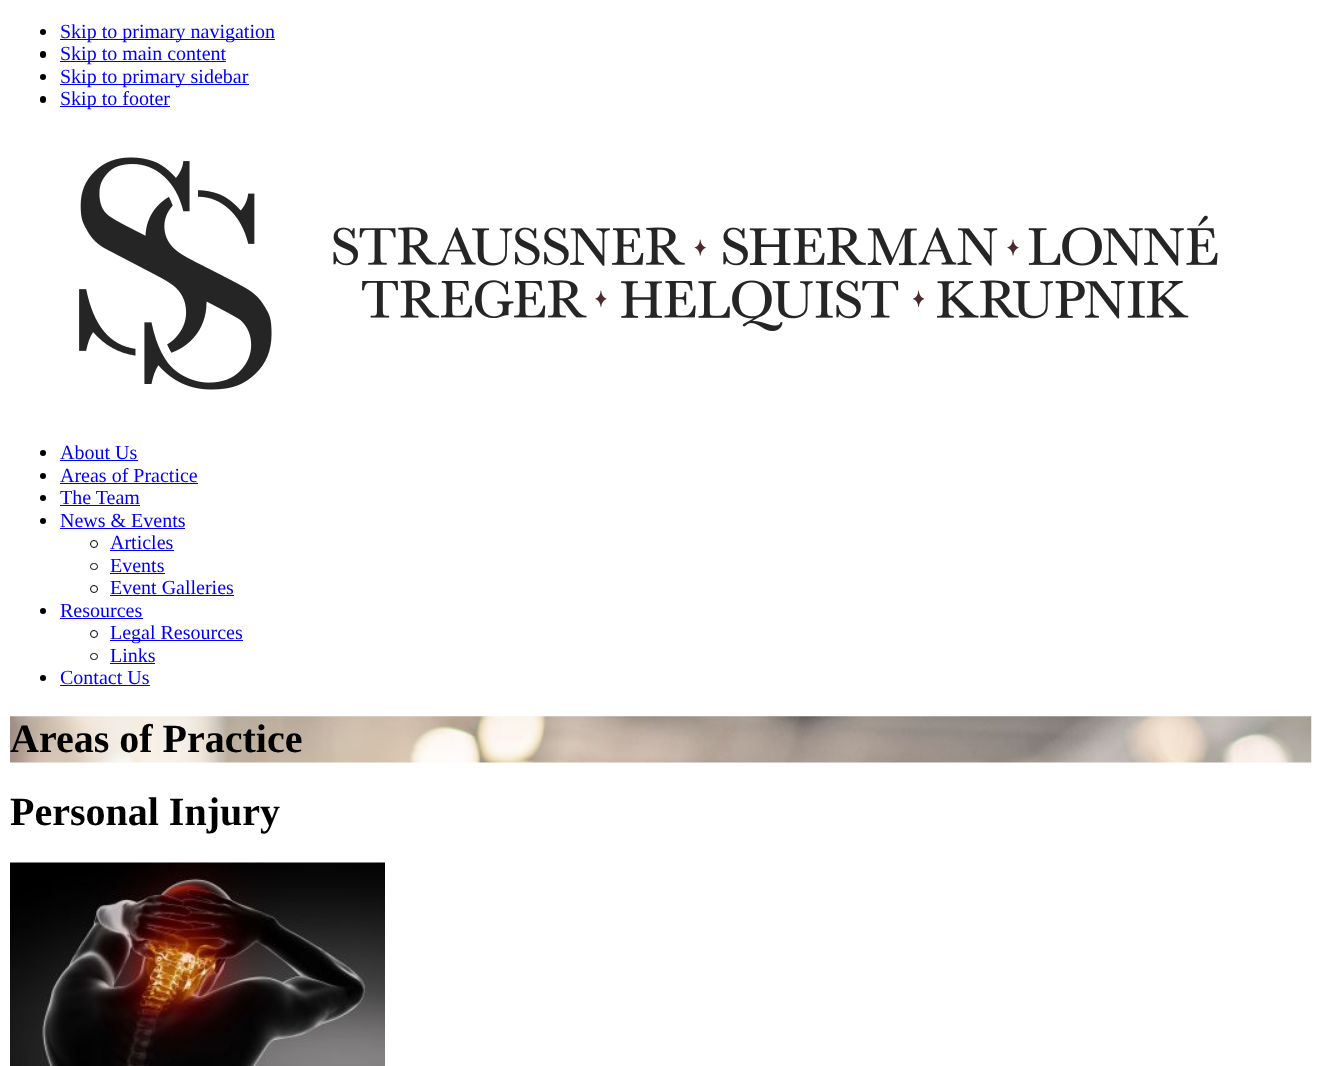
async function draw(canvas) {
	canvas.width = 1321;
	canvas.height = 1066;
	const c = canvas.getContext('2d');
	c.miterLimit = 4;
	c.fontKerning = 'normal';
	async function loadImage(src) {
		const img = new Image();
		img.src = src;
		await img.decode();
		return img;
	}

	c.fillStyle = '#fff';
	c.fillRect(0, 0, 1321, 1066);
	c.fillStyle = '#000';
	c.beginPath();
	c.arc(43, 32, 3, 0, 2 * Math.PI);
	c.fill();
	c.fillStyle = '#00e';
	c.fillRect(60, 39, 215, 1);
	c.font = '20px Liberation Serif';
	c.fillText('Skip to primary navigation', 60, 38);
	c.fillStyle = '#000';
	c.beginPath();
	c.roundRect(40, 51, 6, 7, 3);
	c.fill();
	c.fillStyle = '#00e';
	c.fillRect(60, 61, 166, 1);
	c.fillText('Skip to main content', 60, 60);
	c.fillStyle = '#000';
	c.beginPath();
	c.arc(43, 77, 3, 0, 2 * Math.PI);
	c.fill();
	c.fillStyle = '#00e';
	c.fillRect(60, 84, 189, 1);
	c.fillText('Skip to primary sidebar', 60, 83);
	c.fillStyle = '#000';
	c.beginPath();
	c.roundRect(40, 96, 6, 7, 3);
	c.fill();
	c.fillStyle = '#00e';
	c.fillRect(60, 106, 110, 1);
	c.fillText('Skip to footer', 60, 105);
	c.drawImage(await loadImage('img1.png'), 79, 157, 1139, 233);
	c.fillStyle = '#000';
	c.beginPath();
	c.arc(43, 453, 3, 0, 2 * Math.PI);
	c.fill();
	c.fillStyle = '#00e';
	c.fillText('About Us', 60, 459);
	c.fillRect(60, 460, 78, 1);
	c.fillStyle = '#000';
	c.beginPath();
	c.arc(43, 476, 3, 0, 2 * Math.PI);
	c.fill();
	c.fillStyle = '#00e';
	c.fillText('Areas of Practice', 60, 482);
	c.fillRect(60, 483, 138, 1);
	c.fillStyle = '#000';
	c.beginPath();
	c.arc(43, 498, 3, 0, 2 * Math.PI);
	c.fill();
	c.fillStyle = '#00e';
	c.fillText('The Team', 60, 504);
	c.fillRect(60, 505, 80, 1);
	c.fillStyle = '#000';
	c.beginPath();
	c.arc(43, 521, 3, 0, 2 * Math.PI);
	c.fill();
	c.fillStyle = '#00e';
	c.fillText('News & Events', 60, 527);
	c.fillRect(60, 528, 125, 1);
	c.beginPath();
	c.arc(94, 544, 3.5, 0, 2 * Math.PI);
	c.strokeStyle = '#000';
	c.stroke();
	c.fillText('Articles', 110, 549);
	c.fillRect(110, 550, 64, 1);
	c.beginPath();
	c.roundRect(90.5, 563.5, 7, 6, 3);
	c.stroke();
	c.fillText('Events', 110, 572);
	c.fillRect(110, 573, 55, 1);
	c.beginPath();
	c.arc(94, 589, 3.5, 0, 2 * Math.PI);
	c.stroke();
	c.fillText('Event Galleries', 110, 594);
	c.fillRect(110, 595, 124, 1);
	c.fillStyle = '#000';
	c.beginPath();
	c.arc(43, 611, 3, 0, 2 * Math.PI);
	c.fill();
	c.fillStyle = '#00e';
	c.fillText('Resources', 60, 617);
	c.fillRect(60, 618, 83, 1);
	c.beginPath();
	c.arc(94, 634, 3.5, 0, 2 * Math.PI);
	c.stroke();
	c.fillRect(110, 640, 133, 1);
	c.fillText('Legal Resources', 110, 639);
	c.beginPath();
	c.roundRect(90.5, 653.5, 7, 6, 3);
	c.stroke();
	c.fillText('Links', 110, 662);
	c.fillRect(110, 663, 45, 1);
	c.fillStyle = '#000';
	c.beginPath();
	c.arc(43, 678, 3, 0, 2 * Math.PI);
	c.fill();
	c.fillStyle = '#00e';
	c.fillText('Contact Us', 60, 684);
	c.fillRect(60, 685, 90, 1);
	c.drawImage(await loadImage('img2.png'), 10, 716, 1302, 47);
	c.font = 'bold 40px Liberation Serif';
	c.fillStyle = '#000';
	c.fillText('Areas of Practice', 10, 752);
	c.fillText('Personal Injury', 10, 825);
	c.drawImage(await loadImage('img3.png'), 10, 862, 375, 204);
}

draw(document.querySelector('canvas'));
